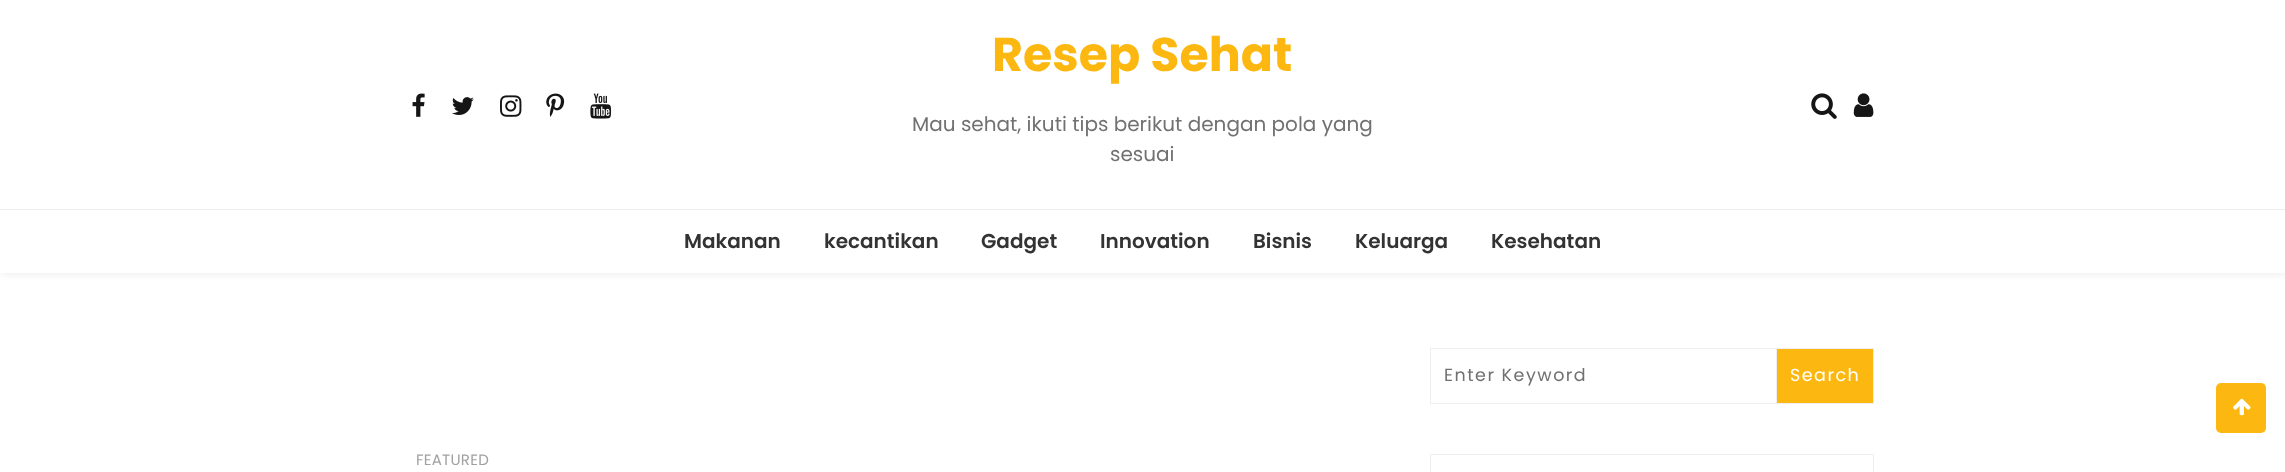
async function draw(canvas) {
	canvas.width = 2285;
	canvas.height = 472;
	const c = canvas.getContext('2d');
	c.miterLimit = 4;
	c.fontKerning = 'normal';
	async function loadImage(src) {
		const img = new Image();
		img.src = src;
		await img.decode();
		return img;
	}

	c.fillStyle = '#fff';
	c.fillRect(0, 0, 2285, 472);
	c.fillStyle = '#ebebebbf';
	c.filter = 'blur(3px)';
	c.beginPath();
	c.rect(1, 3, 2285, 272);
	c.fill();
	c.filter = 'none';
	c.fillStyle = '#fff';
	c.fillRect(0, 0, 2285, 273);
	c.drawImage(await loadImage('img1.png'), 412, 93, 13, 24);
	c.drawImage(await loadImage('img2.png'), 452, 97, 22, 18);
	c.drawImage(await loadImage('img3.png'), 500, 95, 22, 22);
	c.drawImage(await loadImage('img4.png'), 546, 93, 19, 24);
	c.drawImage(await loadImage('img5.png'), 590, 93, 22, 26);
	c.font = 'bold 47.5px Poppins';
	c.fillStyle = '#fcb811';
	c.fillText('Resep Sehat', 992, 71);
	c.font = '20px Poppins';
	c.fillStyle = '#717171';
	c.fillText('Mau sehat, ikuti tips berikut dengan pola yang', 912, 131);
	c.fillText('sesuai', 1110, 161);
	c.drawImage(await loadImage('img6.png'), 1811, 93, 26, 26);
	c.drawImage(await loadImage('img7.png'), 1853, 93, 21, 24);
	c.fillStyle = '#eee';
	c.fillRect(0, 209, 2285, 1);
	c.font = '600 20px Poppins';
	c.fillStyle = '#333';
	for (const [text, x, y] of [
		['Makanan', 684, 248],
		['kecantikan', 824, 248],
		['Gadget', 981, 248],
		['Innovation', 1100, 248],
		['Bisnis', 1253, 248],
		['Keluarga', 1355, 248],
		['Kesehatan', 1491, 248],
	]) {
		c.fillText(text, x, y);
	}
	c.strokeStyle = '#eee';
	c.strokeRect(1430.5, 348.5, 443, 55);
	c.letterSpacing = '1.5px';
	c.font = '17.5px Poppins';
	c.fillStyle = '#717171';
	c.fillText('Enter Keyword', 1444, 381);
	c.fillStyle = '#fcb811';
	c.beginPath();
	c.rect(1776.5, 348.5, 97, 55);
	c.fill();
	c.stroke();
	c.fillStyle = '#fff';
	c.fillText('Search', 1790, 381);
	c.strokeRect(1430.5, 454.5, 443, 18);
	c.letterSpacing = '0.25px';
	c.font = '15px Poppins';
	c.fillStyle = '#a1a1a1';
	c.fillText('FEATURED', 416, 465);
	c.fillStyle = '#fcb811';
	c.beginPath();
	c.roundRect(2216, 383, 50, 50, 5);
	c.fill();
	c.drawImage(await loadImage('img8.png'), 2233, 398, 18, 18);
}

draw(document.querySelector('canvas'));
